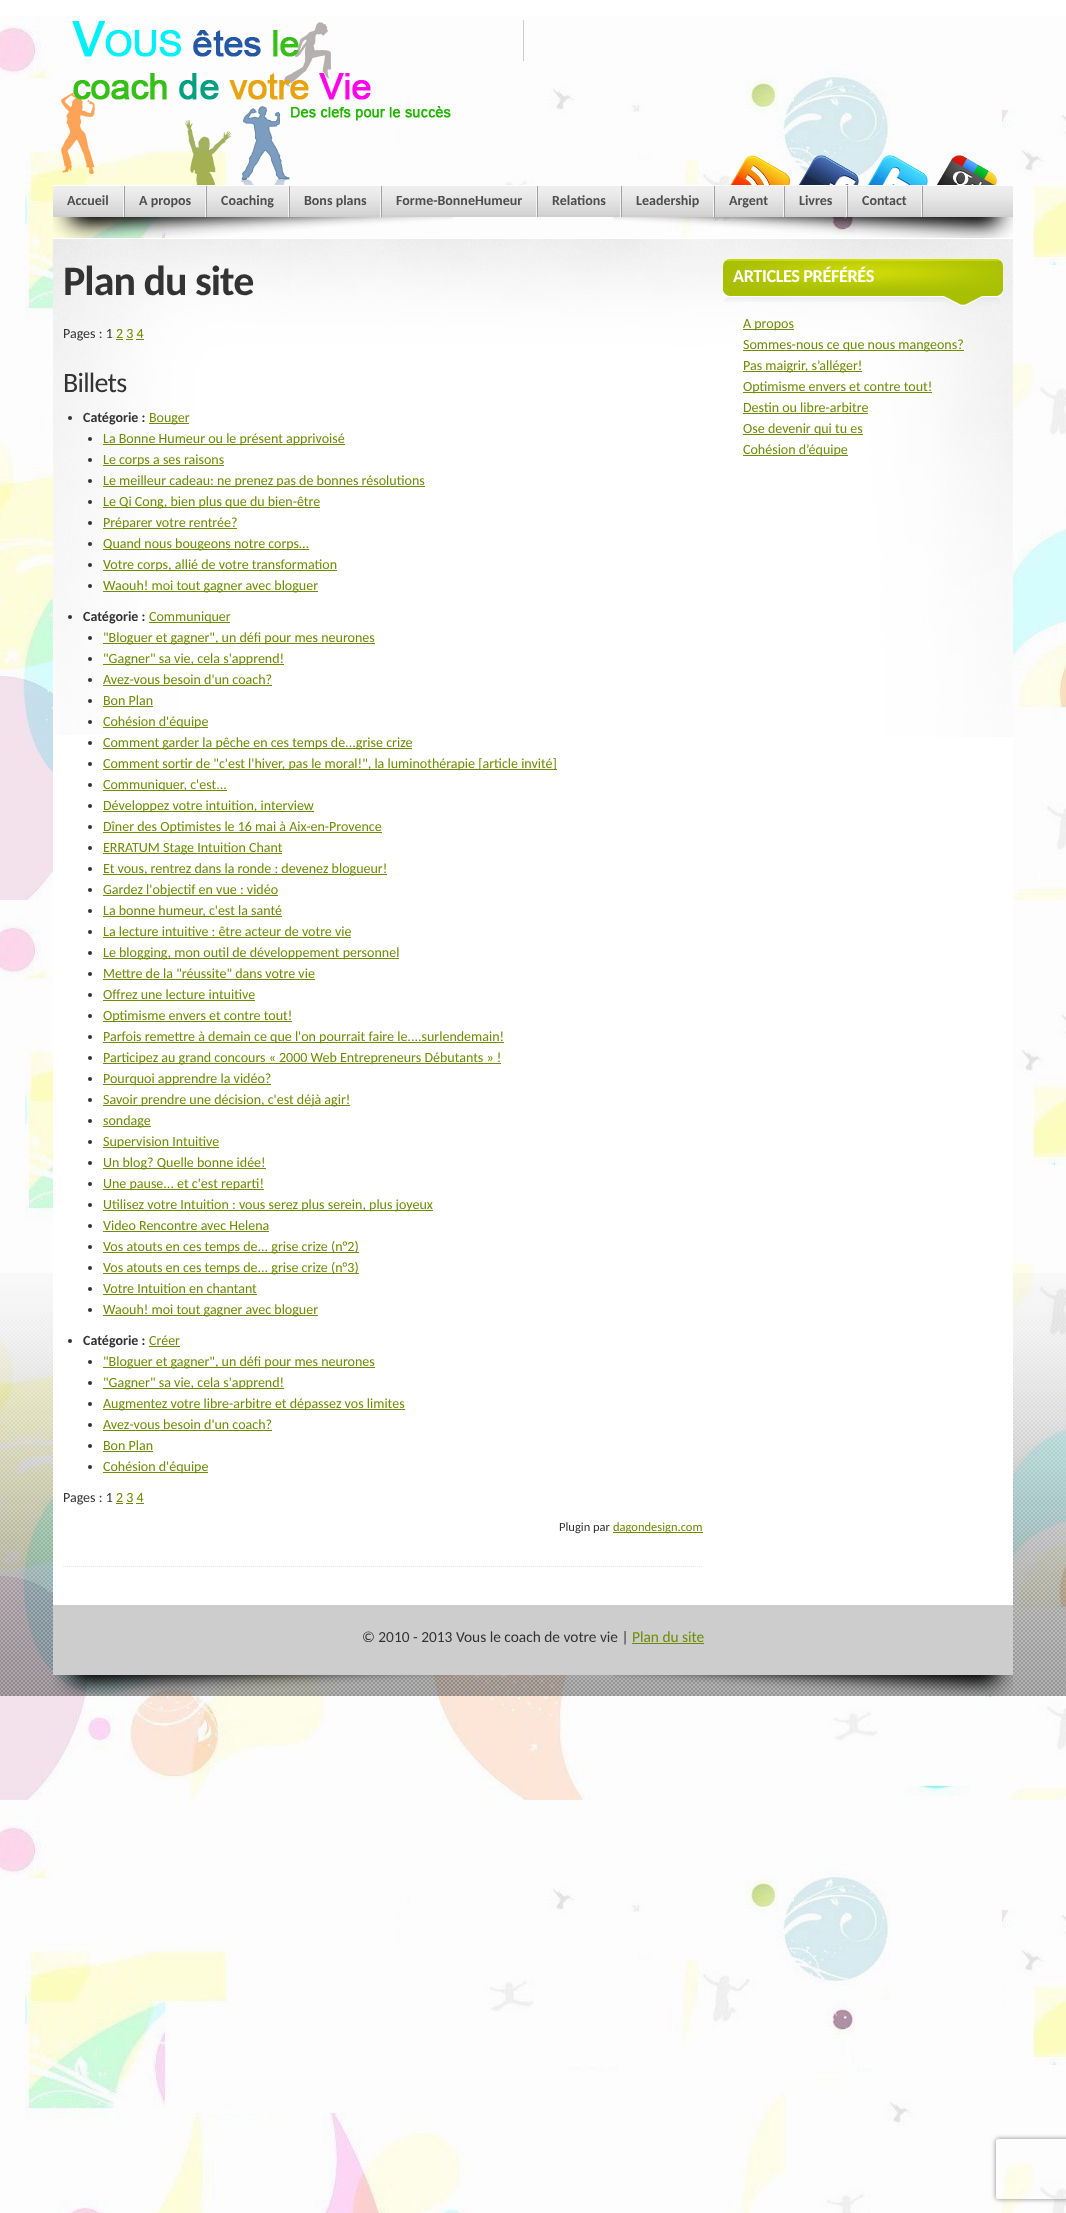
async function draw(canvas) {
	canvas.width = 1066;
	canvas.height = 2213;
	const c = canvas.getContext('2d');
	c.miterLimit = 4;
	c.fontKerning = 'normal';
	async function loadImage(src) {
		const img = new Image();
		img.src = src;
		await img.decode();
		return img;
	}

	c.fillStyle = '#fff';
	c.fillRect(0, 0, 1066, 2213);
	c.drawImage(await loadImage('img1.png'), 0, 16, 1066, 2197);
	c.drawImage(await loadImage('img2.png'), 0, 1273, 1066, 423);
	c.drawImage(await loadImage('img3.png'), 61, 21, 390, 164);
	c.fillStyle = '#ccc';
	c.fillRect(523, 20, 1, 41);
	c.drawImage(await loadImage('img4.png'), 53, 217, 400, 21);
	c.drawImage(await loadImage('img5.png'), 730, 155, 61, 30);
	c.drawImage(await loadImage('img6.png'), 799, 155, 60, 30);
	c.drawImage(await loadImage('img7.png'), 868, 155, 60, 30);
	c.drawImage(await loadImage('img8.png'), 937, 155, 60, 30);
	c.drawImage(await loadImage('img9.png'), 613, 217, 400, 21);
	c.fillStyle = '#cecece';
	c.fillRect(53, 215, 960, 2);
	c.drawImage(await loadImage('img10.png'), 53, 186, 960, 29);
	c.fillStyle = '#fff';
	c.fillRect(1002, 185, 11, 1);
	c.drawImage(await loadImage('img11.png'), 123, 186, 2, 31);
	c.fillRect(53, 185, 180, 1);
	c.font = 'bold 14px Carlito';
	c.fillStyle = '#4e4e4e';
	c.fillText('Accueil', 67, 205);
	c.drawImage(await loadImage('img11.png'), 205, 186, 2, 31);
	c.fillText('A propos', 139, 205);
	c.drawImage(await loadImage('img11.png'), 288, 186, 2, 31);
	c.fillText('Coaching', 221, 205);
	c.drawImage(await loadImage('img11.png'), 380, 186, 2, 31);
	c.fillText('Bons plans', 304, 205);
	c.drawImage(await loadImage('img11.png'), 536, 186, 2, 31);
	c.fillStyle = '#fff';
	c.fillRect(488, 185, 50, 1);
	c.fillStyle = '#4e4e4e';
	c.fillText('Forme-BonneHumeur', 396, 205);
	c.drawImage(await loadImage('img11.png'), 620, 186, 2, 31);
	c.fillText('Relations', 552, 205);
	c.drawImage(await loadImage('img11.png'), 713, 186, 2, 31);
	c.fillStyle = '#fff';
	c.fillRect(680, 185, 77, 1);
	c.fillStyle = '#4e4e4e';
	c.fillText('Leadership', 636, 205);
	c.drawImage(await loadImage('img11.png'), 783, 186, 2, 31);
	c.fillText('Argent', 729, 205);
	c.drawImage(await loadImage('img11.png'), 846, 186, 2, 31);
	c.fillStyle = '#fff';
	c.fillRect(817, 185, 40, 1);
	c.fillStyle = '#4e4e4e';
	c.fillText('Livres', 799, 205);
	c.drawImage(await loadImage('img11.png'), 921, 186, 2, 31);
	c.fillText('Contact', 862, 205);
	c.fillStyle = '#fff';
	c.fillRect(53, 238, 960, 1367);
	c.drawImage(await loadImage('img12.png'), 53, 239, 960, 498);
	c.drawImage(await loadImage('img13.png'), 53, 239, 208, 496);
	c.beginPath();
	c.moveTo(63, 1566.5);
	c.lineTo(703, 1566.5);
	c.strokeStyle = '#e8e8e8';
	c.setLineDash([1, 1]);
	c.stroke();
	c.letterSpacing = '-1px';
	c.font = 'bold 42px Carlito';
	c.fillStyle = '#333';
	c.fillText('Plan du site', 63, 295);
	c.letterSpacing = '0px';
	c.font = '14px Carlito';
	c.fillText('Pages : 1', 63, 338);
	c.fillStyle = '#6e8c03';
	c.fillText('2 3 4', 116, 338);
	for (const [x, y, w, h, color] of [
		[116, 339, 7, 1, '#6e8c03'],
		[126, 339, 7, 1, '#6e8c03'],
		[136, 339, 8, 1, '#6e8c03'],
	]) {
		c.fillStyle = color;
		c.fillRect(x, y, w, h);
	}
	c.letterSpacing = '-0.75px';
	c.font = '28px Carlito';
	c.fillStyle = '#333';
	c.fillText('Billets', 63, 392);
	c.beginPath();
	c.arc(70, 418, 2, 0, 2 * Math.PI);
	c.fill();
	c.letterSpacing = '0px';
	c.font = 'bold 14px Carlito';
	c.fillText('Catégorie :', 83, 422);
	c.fillStyle = '#6e8c03';
	c.fillRect(149, 423, 40, 1);
	c.font = '14px Carlito';
	c.fillText('Bouger', 149, 422);
	c.fillStyle = '#333';
	c.beginPath();
	c.arc(90, 439, 2, 0, 2 * Math.PI);
	c.fill();
	c.fillStyle = '#6e8c03';
	c.fillRect(103, 444, 242, 1);
	c.fillText('La Bonne Humeur ou le présent apprivoisé', 103, 443);
	c.fillStyle = '#333';
	c.beginPath();
	c.arc(90, 460, 2, 0, 2 * Math.PI);
	c.fill();
	c.fillStyle = '#6e8c03';
	c.fillRect(103, 465, 121, 1);
	c.fillText('Le corps a ses raisons', 103, 464);
	c.fillStyle = '#333';
	c.beginPath();
	c.arc(90, 481, 2, 0, 2 * Math.PI);
	c.fill();
	c.fillStyle = '#6e8c03';
	c.fillRect(103, 486, 322, 1);
	c.fillText('Le meilleur cadeau: ne prenez pas de bonnes résolutions', 103, 485);
	c.fillStyle = '#333';
	c.beginPath();
	c.arc(90, 502, 2, 0, 2 * Math.PI);
	c.fill();
	c.fillStyle = '#6e8c03';
	c.fillRect(103, 507, 217, 1);
	c.fillText('Le Qi Cong, bien plus que du bien-être', 103, 506);
	c.fillStyle = '#333';
	c.beginPath();
	c.arc(90, 523, 2, 0, 2 * Math.PI);
	c.fill();
	c.fillStyle = '#6e8c03';
	c.fillRect(103, 528, 134, 1);
	c.fillText('Préparer votre rentrée?', 103, 527);
	c.fillStyle = '#333';
	c.beginPath();
	c.arc(90, 544, 2, 0, 2 * Math.PI);
	c.fill();
	c.fillStyle = '#6e8c03';
	c.fillRect(103, 549, 206, 1);
	c.fillText('Quand nous bougeons notre corps…', 103, 548);
	c.fillStyle = '#333';
	c.beginPath();
	c.arc(90, 565, 2, 0, 2 * Math.PI);
	c.fill();
	c.fillStyle = '#6e8c03';
	c.fillRect(103, 570, 234, 1);
	c.fillText('Votre corps, allié de votre transformation', 103, 569);
	c.fillStyle = '#333';
	c.beginPath();
	c.arc(90, 586, 2, 0, 2 * Math.PI);
	c.fill();
	c.fillStyle = '#6e8c03';
	c.fillRect(103, 591, 215, 1);
	c.fillText('Waouh! moi tout gagner avec bloguer', 103, 590);
	c.fillStyle = '#333';
	c.beginPath();
	c.arc(70, 617, 2, 0, 2 * Math.PI);
	c.fill();
	c.font = 'bold 14px Carlito';
	c.fillText('Catégorie :', 83, 621);
	c.fillStyle = '#6e8c03';
	c.fillRect(149, 622, 81, 1);
	c.font = '14px Carlito';
	c.fillText('Communiquer', 149, 621);
	c.fillStyle = '#333';
	c.beginPath();
	c.arc(90, 638, 2, 0, 2 * Math.PI);
	c.fill();
	c.fillStyle = '#6e8c03';
	c.fillRect(103, 643, 272, 1);
	c.fillText('"Bloguer et gagner", un défi pour mes neurones', 103, 642);
	c.fillStyle = '#333';
	c.beginPath();
	c.arc(90, 659, 2, 0, 2 * Math.PI);
	c.fill();
	c.fillStyle = '#6e8c03';
	c.fillRect(103, 664, 181, 1);
	c.fillText('"Gagner" sa vie, cela s\'apprend!', 103, 663);
	c.fillStyle = '#333';
	c.beginPath();
	c.arc(90, 680, 2, 0, 2 * Math.PI);
	c.fill();
	c.fillStyle = '#6e8c03';
	c.fillText('Avez-vous besoin d\'un coach?', 103, 684);
	c.fillRect(103, 685, 169, 1);
	c.fillStyle = '#333';
	c.beginPath();
	c.arc(90, 701, 2, 0, 2 * Math.PI);
	c.fill();
	c.fillStyle = '#6e8c03';
	c.fillText('Bon Plan', 103, 705);
	c.fillRect(103, 706, 50, 1);
	c.fillStyle = '#333';
	c.beginPath();
	c.arc(90, 722, 2, 0, 2 * Math.PI);
	c.fill();
	c.fillStyle = '#6e8c03';
	c.fillRect(103, 727, 105, 1);
	c.fillText('Cohésion d\'équipe', 103, 726);
	c.fillStyle = '#333';
	c.beginPath();
	c.arc(90, 743, 2, 0, 2 * Math.PI);
	c.fill();
	c.fillStyle = '#6e8c03';
	c.fillRect(103, 748, 309, 1);
	c.fillText('Comment garder la pêche en ces temps de...grise crize', 103, 747);
	c.fillStyle = '#333';
	c.beginPath();
	c.arc(90, 764, 2, 0, 2 * Math.PI);
	c.fill();
	c.fillStyle = '#6e8c03';
	c.fillRect(103, 769, 454, 1);
	c.fillText('Comment sortir de "c\'est l\'hiver, pas le moral!", la luminothérapie [article invité]', 103, 768);
	c.fillStyle = '#333';
	c.beginPath();
	c.arc(90, 785, 2, 0, 2 * Math.PI);
	c.fill();
	c.fillStyle = '#6e8c03';
	c.fillRect(103, 790, 124, 1);
	c.fillText('Communiquer, c\'est...', 103, 789);
	c.fillStyle = '#333';
	c.beginPath();
	c.arc(90, 806, 2, 0, 2 * Math.PI);
	c.fill();
	c.fillStyle = '#6e8c03';
	c.fillRect(103, 811, 211, 1);
	c.fillText('Développez votre intuition, interview', 103, 810);
	c.fillStyle = '#333';
	c.beginPath();
	c.arc(90, 827, 2, 0, 2 * Math.PI);
	c.fill();
	c.fillStyle = '#6e8c03';
	c.fillRect(103, 832, 279, 1);
	c.fillText('Dîner des Optimistes le 16 mai à Aix-en-Provence', 103, 831);
	c.fillStyle = '#333';
	c.beginPath();
	c.arc(90, 848, 2, 0, 2 * Math.PI);
	c.fill();
	c.fillStyle = '#6e8c03';
	c.fillRect(103, 853, 179, 1);
	c.fillText('ERRATUM Stage Intuition Chant', 103, 852);
	c.fillStyle = '#333';
	c.beginPath();
	c.arc(90, 869, 2, 0, 2 * Math.PI);
	c.fill();
	c.fillStyle = '#6e8c03';
	c.fillRect(103, 874, 284, 1);
	c.fillText('Et vous, rentrez dans la ronde : devenez blogueur!', 103, 873);
	c.fillStyle = '#333';
	c.beginPath();
	c.arc(90, 890, 2, 0, 2 * Math.PI);
	c.fill();
	c.fillStyle = '#6e8c03';
	c.fillRect(103, 895, 175, 1);
	c.fillText('Gardez l\'objectif en vue : vidéo', 103, 894);
	c.fillStyle = '#333';
	c.beginPath();
	c.arc(90, 911, 2, 0, 2 * Math.PI);
	c.fill();
	c.fillStyle = '#6e8c03';
	c.fillRect(103, 916, 179, 1);
	c.fillText('La bonne humeur, c\'est la santé', 103, 915);
	c.fillStyle = '#333';
	c.beginPath();
	c.arc(90, 932, 2, 0, 2 * Math.PI);
	c.fill();
	c.fillStyle = '#6e8c03';
	c.fillText('La lecture intuitive : être acteur de votre vie', 103, 936);
	c.fillRect(103, 937, 248, 1);
	c.fillStyle = '#333';
	c.beginPath();
	c.arc(90, 953, 2, 0, 2 * Math.PI);
	c.fill();
	c.fillStyle = '#6e8c03';
	c.fillRect(103, 958, 296, 1);
	c.fillText('Le blogging, mon outil de développement personnel', 103, 957);
	c.fillStyle = '#333';
	c.beginPath();
	c.arc(90, 974, 2, 0, 2 * Math.PI);
	c.fill();
	c.fillStyle = '#6e8c03';
	c.fillText('Mettre de la "réussite" dans votre vie', 103, 978);
	c.fillRect(103, 979, 212, 1);
	c.fillStyle = '#333';
	c.beginPath();
	c.arc(90, 995, 2, 0, 2 * Math.PI);
	c.fill();
	c.fillStyle = '#6e8c03';
	c.fillText('Offrez une lecture intuitive', 103, 999);
	c.fillRect(103, 1000, 152, 1);
	c.fillStyle = '#333';
	c.beginPath();
	c.arc(90, 1016, 2, 0, 2 * Math.PI);
	c.fill();
	c.fillStyle = '#6e8c03';
	c.fillRect(103, 1021, 189, 1);
	c.fillText('Optimisme envers et contre tout!', 103, 1020);
	c.fillStyle = '#333';
	c.beginPath();
	c.arc(90, 1037, 2, 0, 2 * Math.PI);
	c.fill();
	c.fillStyle = '#6e8c03';
	c.fillRect(103, 1042, 401, 1);
	c.fillText('Parfois remettre à demain ce que l\'on pourrait faire le....surlendemain!', 103, 1041);
	c.fillStyle = '#333';
	c.beginPath();
	c.arc(90, 1058, 2, 0, 2 * Math.PI);
	c.fill();
	c.fillStyle = '#6e8c03';
	c.fillRect(103, 1063, 398, 1);
	c.fillText('Participez au grand concours « 2000 Web Entrepreneurs Débutants » !', 103, 1062);
	c.fillStyle = '#333';
	c.beginPath();
	c.arc(90, 1079, 2, 0, 2 * Math.PI);
	c.fill();
	c.fillStyle = '#6e8c03';
	c.fillRect(103, 1084, 168, 1);
	c.fillText('Pourquoi apprendre la vidéo?', 103, 1083);
	c.fillStyle = '#333';
	c.beginPath();
	c.arc(90, 1100, 2, 0, 2 * Math.PI);
	c.fill();
	c.fillStyle = '#6e8c03';
	c.fillRect(103, 1105, 247, 1);
	c.fillText('Savoir prendre une décision, c\'est déjà agir!', 103, 1104);
	c.fillStyle = '#333';
	c.beginPath();
	c.arc(90, 1121, 2, 0, 2 * Math.PI);
	c.fill();
	c.fillStyle = '#6e8c03';
	c.fillRect(103, 1126, 48, 1);
	c.fillText('sondage', 103, 1125);
	c.fillStyle = '#333';
	c.beginPath();
	c.arc(90, 1142, 2, 0, 2 * Math.PI);
	c.fill();
	c.fillStyle = '#6e8c03';
	c.fillRect(103, 1147, 116, 1);
	c.fillText('Supervision Intuitive', 103, 1146);
	c.fillStyle = '#333';
	c.beginPath();
	c.arc(90, 1163, 2, 0, 2 * Math.PI);
	c.fill();
	c.fillStyle = '#6e8c03';
	c.fillRect(103, 1168, 163, 1);
	c.fillText('Un blog? Quelle bonne idée!', 103, 1167);
	c.fillStyle = '#333';
	c.beginPath();
	c.arc(90, 1184, 2, 0, 2 * Math.PI);
	c.fill();
	c.fillStyle = '#6e8c03';
	c.fillRect(103, 1189, 161, 1);
	c.fillText('Une pause... et c\'est reparti!', 103, 1188);
	c.fillStyle = '#333';
	c.beginPath();
	c.arc(90, 1205, 2, 0, 2 * Math.PI);
	c.fill();
	c.fillStyle = '#6e8c03';
	c.fillRect(103, 1210, 330, 1);
	c.fillText('Utilisez votre Intuition : vous serez plus serein, plus joyeux', 103, 1209);
	c.fillStyle = '#333';
	c.beginPath();
	c.arc(90, 1226, 2, 0, 2 * Math.PI);
	c.fill();
	c.fillStyle = '#6e8c03';
	c.fillText('Video Rencontre avec Helena', 103, 1230);
	c.fillRect(103, 1231, 166, 1);
	c.fillStyle = '#333';
	c.beginPath();
	c.arc(90, 1247, 2, 0, 2 * Math.PI);
	c.fill();
	c.fillStyle = '#6e8c03';
	c.fillRect(103, 1252, 256, 1);
	c.fillText('Vos atouts en ces temps de... grise crize (n°2)', 103, 1251);
	c.fillStyle = '#333';
	c.beginPath();
	c.arc(90, 1268, 2, 0, 2 * Math.PI);
	c.fill();
	c.fillStyle = '#6e8c03';
	c.fillRect(103, 1273, 256, 1);
	c.fillText('Vos atouts en ces temps de... grise crize (n°3)', 103, 1272);
	c.fillStyle = '#333';
	c.beginPath();
	c.arc(90, 1289, 2, 0, 2 * Math.PI);
	c.fill();
	c.fillStyle = '#6e8c03';
	c.fillText('Votre Intuition en chantant', 103, 1293);
	c.fillRect(103, 1294, 154, 1);
	c.fillStyle = '#333';
	c.beginPath();
	c.arc(90, 1310, 2, 0, 2 * Math.PI);
	c.fill();
	c.fillStyle = '#6e8c03';
	c.fillRect(103, 1315, 215, 1);
	c.fillText('Waouh! moi tout gagner avec bloguer', 103, 1314);
	c.fillStyle = '#333';
	c.beginPath();
	c.arc(70, 1341, 2, 0, 2 * Math.PI);
	c.fill();
	c.font = 'bold 14px Carlito';
	c.fillText('Catégorie :', 83, 1345);
	c.font = '14px Carlito';
	c.fillStyle = '#6e8c03';
	c.fillText('Créer', 149, 1345);
	c.fillRect(149, 1346, 31, 1);
	c.fillStyle = '#333';
	c.beginPath();
	c.arc(90, 1362, 2, 0, 2 * Math.PI);
	c.fill();
	c.fillStyle = '#6e8c03';
	c.fillRect(103, 1367, 272, 1);
	c.fillText('"Bloguer et gagner", un défi pour mes neurones', 103, 1366);
	c.fillStyle = '#333';
	c.beginPath();
	c.arc(90, 1383, 2, 0, 2 * Math.PI);
	c.fill();
	c.fillStyle = '#6e8c03';
	c.fillRect(103, 1388, 181, 1);
	c.fillText('"Gagner" sa vie, cela s\'apprend!', 103, 1387);
	c.fillStyle = '#333';
	c.beginPath();
	c.arc(90, 1404, 2, 0, 2 * Math.PI);
	c.fill();
	c.fillStyle = '#6e8c03';
	c.fillRect(103, 1409, 302, 1);
	c.fillText('Augmentez votre libre-arbitre et dépassez vos limites', 103, 1408);
	c.fillStyle = '#333';
	c.beginPath();
	c.arc(90, 1425, 2, 0, 2 * Math.PI);
	c.fill();
	c.fillStyle = '#6e8c03';
	c.fillText('Avez-vous besoin d\'un coach?', 103, 1429);
	c.fillRect(103, 1430, 169, 1);
	c.fillStyle = '#333';
	c.beginPath();
	c.arc(90, 1446, 2, 0, 2 * Math.PI);
	c.fill();
	c.fillStyle = '#6e8c03';
	c.fillText('Bon Plan', 103, 1450);
	c.fillRect(103, 1451, 50, 1);
	c.fillStyle = '#333';
	c.beginPath();
	c.arc(90, 1467, 2, 0, 2 * Math.PI);
	c.fill();
	c.fillStyle = '#6e8c03';
	c.fillRect(103, 1472, 105, 1);
	c.fillText('Cohésion d\'équipe', 103, 1471);
	c.fillStyle = '#333';
	c.fillText('Pages : 1', 63, 1502);
	c.fillStyle = '#6e8c03';
	c.fillText('2 3 4', 116, 1502);
	for (const [x, y, w, h, color] of [
		[116, 1503, 7, 1, '#6e8c03'],
		[126, 1503, 7, 1, '#6e8c03'],
		[136, 1503, 8, 1, '#6e8c03'],
	]) {
		c.fillStyle = color;
		c.fillRect(x, y, w, h);
	}
	c.font = '12.5px Carlito';
	c.fillStyle = '#333';
	c.fillText('Plugin par', 559, 1531);
	c.fillStyle = '#6e8c03';
	c.fillRect(613, 1532, 90, 1);
	c.fillText('dagondesign.com', 613, 1531);
	c.drawImage(await loadImage('img14.png'), 723, 259, 280, 32);
	c.letterSpacing = '-0.4px';
	c.font = 'bold 18.25px Carlito';
	c.fillStyle = '#fff';
	c.fillText('ARTICLES PRÉFÉRÉS', 733, 282);
	c.drawImage(await loadImage('img15.png'), 723, 291, 220, 11);
	c.drawImage(await loadImage('img16.png'), 943, 291, 60, 15);
	c.fillStyle = '#6e8c03';
	c.fillRect(743, 329, 51, 1);
	c.letterSpacing = '0px';
	c.font = '14px Carlito';
	c.fillText('A propos', 743, 328);
	c.fillRect(743, 350, 221, 1);
	c.fillText('Sommes-nous ce que nous mangeons?', 743, 349);
	c.fillRect(743, 371, 119, 1);
	c.fillText('Pas maigrir, s’alléger!', 743, 370);
	c.fillRect(743, 392, 189, 1);
	c.fillText('Optimisme envers et contre tout!', 743, 391);
	c.fillText('Destin ou libre-arbitre', 743, 412);
	c.fillRect(743, 413, 125, 1);
	c.fillRect(743, 434, 120, 1);
	c.fillText('Ose devenir qui tu es', 743, 433);
	c.fillRect(743, 455, 105, 1);
	c.fillText('Cohésion d’équipe', 743, 454);
	c.drawImage(await loadImage('img17.png'), 53, 1675, 400, 21);
	c.drawImage(await loadImage('img18.png'), 613, 1675, 400, 21);
	c.fillStyle = '#cdcdcd';
	c.fillRect(53, 1605, 960, 70);
	c.font = '15.4px Carlito';
	c.fillStyle = '#333';
	c.fillText('© 2010 - 2013 Vous le coach de votre vie |', 362, 1642);
	c.fillStyle = '#6e8c03';
	c.fillText('Plan du site', 632, 1642);
	c.fillRect(632, 1643, 72, 1);
	c.save();
	c.beginPath();
	c.moveTo(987, 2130);
	c.lineTo(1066, 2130);
	c.lineTo(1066, 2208);
	c.lineTo(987, 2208);
	c.closePath();
	c.moveTo(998, 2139);
	c.lineTo(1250, 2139);
	c.bezierCurveTo(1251, 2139, 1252, 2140, 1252, 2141);
	c.lineTo(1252, 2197);
	c.bezierCurveTo(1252, 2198, 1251, 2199, 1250, 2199);
	c.lineTo(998, 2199);
	c.bezierCurveTo(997, 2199, 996, 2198, 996, 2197);
	c.lineTo(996, 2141);
	c.bezierCurveTo(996, 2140, 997, 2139, 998, 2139);
	c.closePath();
	c.clip('evenodd');
	c.fillStyle = '#808080';
	c.filter = 'blur(2.5px)';
	c.beginPath();
	c.roundRect(996, 2139, 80, 60, 2);
	c.fill();
	c.filter = 'none';
	c.restore();
}

draw(document.querySelector('canvas'));
